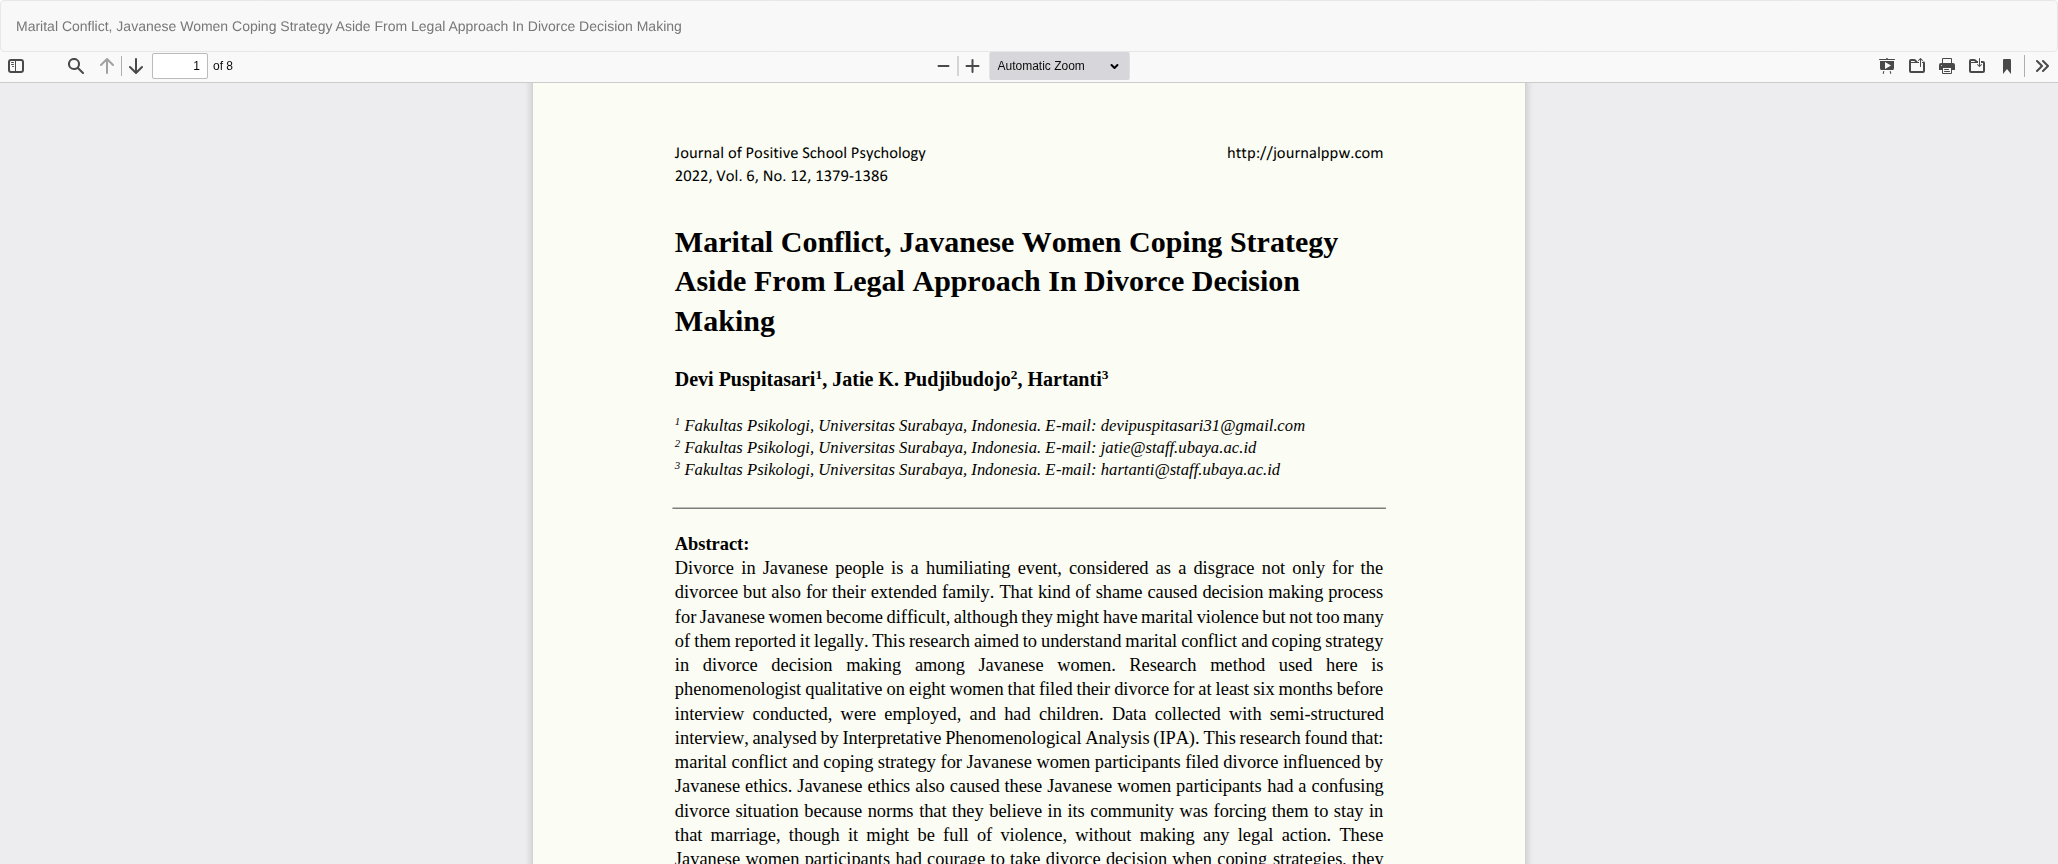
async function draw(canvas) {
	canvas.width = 2058;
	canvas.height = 864;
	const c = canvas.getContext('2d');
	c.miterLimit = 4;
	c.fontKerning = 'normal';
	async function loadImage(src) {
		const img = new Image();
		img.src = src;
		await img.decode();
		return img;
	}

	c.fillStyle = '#fff';
	c.fillRect(0, 0, 2058, 864);
	c.drawImage(await loadImage('img1.png'), 0, 50, 2058, 814);
	c.fillStyle = '#f8f8f8';
	c.beginPath();
	c.roundRect(0.5, 0.5, 2057, 51, 3.5);
	c.fill();
	c.strokeStyle = '#e7e7e7';
	c.stroke();
	c.font = '14px Liberation Sans';
	c.fillStyle = '#777';
	c.fillText('Marital Conflict, Javanese Women Coping Strategy Aside From Legal Approach In Divorce Decision Making', 16, 31);
}

draw(document.querySelector('canvas'));
